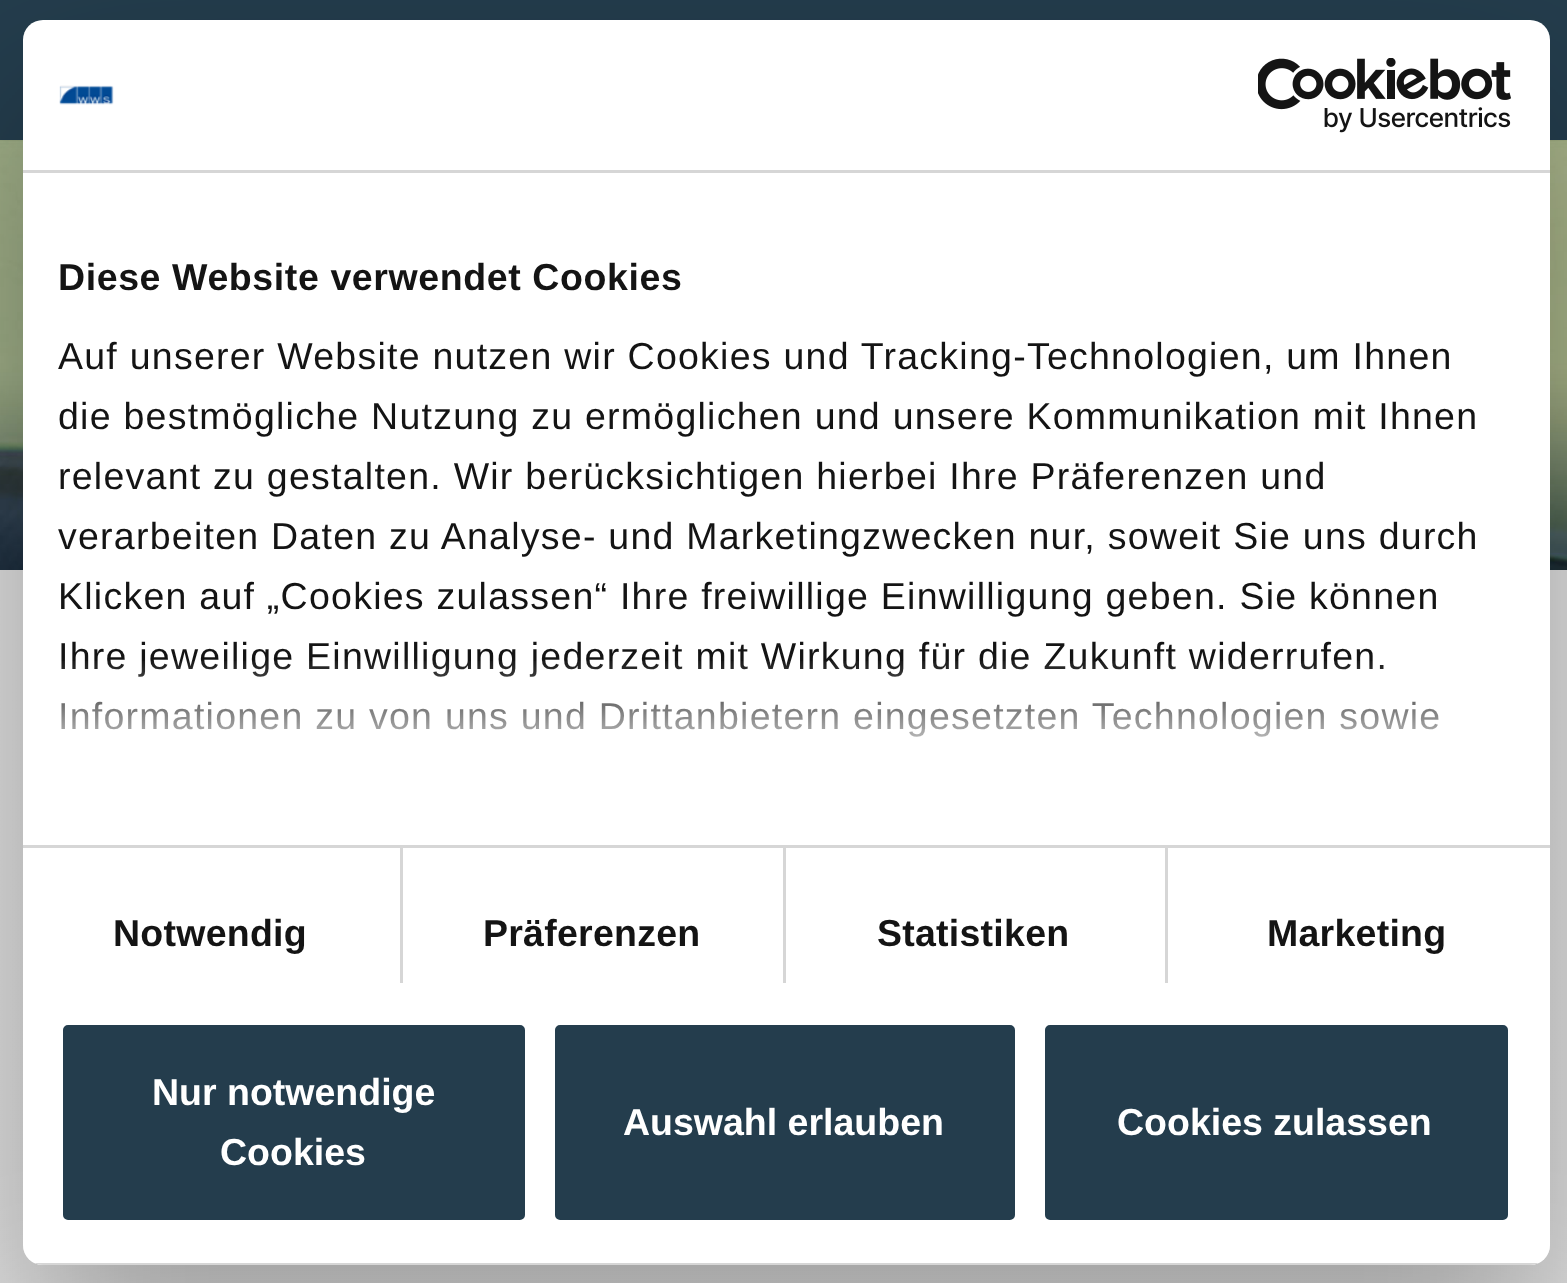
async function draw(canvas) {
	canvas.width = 1567;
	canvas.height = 1283;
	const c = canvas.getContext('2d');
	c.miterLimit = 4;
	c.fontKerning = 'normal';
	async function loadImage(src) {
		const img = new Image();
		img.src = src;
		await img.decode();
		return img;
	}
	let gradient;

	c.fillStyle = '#fff';
	c.fillRect(0, 0, 1567, 1283);
	c.fillStyle = '#243d4d';
	c.fillRect(0, 0, 1567, 140);
	c.drawImage(await loadImage('img1.png'), 0, 140, 1567, 430);
	gradient = c.createLinearGradient(784, 570, 784, 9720);
	gradient.addColorStop(0, '#e1e1e1');
	gradient.addColorStop(1, '#dedede');
	c.fillStyle = gradient;
	c.fillRect(0, 570, 1567, 713);
	c.save();
	c.beginPath();
	c.moveTo(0, 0);
	c.lineTo(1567, 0);
	c.lineTo(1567, 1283);
	c.lineTo(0, 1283);
	c.closePath();
	c.moveTo(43, 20);
	c.lineTo(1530, 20);
	c.bezierCurveTo(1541, 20, 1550, 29, 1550, 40);
	c.lineTo(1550, 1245);
	c.bezierCurveTo(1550, 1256, 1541, 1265, 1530, 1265);
	c.lineTo(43, 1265);
	c.bezierCurveTo(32, 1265, 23, 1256, 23, 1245);
	c.lineTo(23, 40);
	c.bezierCurveTo(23, 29, 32, 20, 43, 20);
	c.closePath();
	c.clip('evenodd');
	c.fillStyle = '#0000004d';
	c.filter = 'blur(85px)';
	c.beginPath();
	c.roundRect(23, 100, 1527, 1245, 20);
	c.fill();
	c.filter = 'none';
	c.restore();
	c.fillStyle = '#fff';
	c.beginPath();
	c.roundRect(23, 20, 1527, 1245, 20);
	c.fill();
	c.fillStyle = '#d6d6d6';
	c.fillRect(23, 170, 1527, 3);
	c.drawImage(await loadImage('img2.png'), 59, 85, 55, 20);
	c.drawImage(await loadImage('img3.png'), 1258, 58, 253, 75);
	c.fillRect(23, 845, 1527, 3);
	c.letterSpacing = '0.6px';
	c.font = 'bold 37.5px Liberation Sans';
	c.fillStyle = '#141414';
	c.fillText('Diese Website verwendet Cookies', 58, 290);
	c.letterSpacing = '1.25px';
	c.font = '37.5px Liberation Sans';
	for (const [text, x, y] of [
		['Auf unserer Website nutzen wir Cookies und Tracking-Technologien, um Ihnen', 58, 369],
		['die bestmögliche Nutzung zu ermöglichen und unsere Kommunikation mit Ihnen', 58, 429],
		['relevant zu gestalten. Wir berücksichtigen hierbei Ihre Präferenzen und', 58, 489],
		['verarbeiten Daten zu Analyse- und Marketingzwecken nur, soweit Sie uns durch', 58, 549],
		['Klicken auf „Cookies zulassen“ Ihre freiwillige Einwilligung geben. Sie können', 58, 609],
		['Ihre jeweilige Einwilligung jederzeit mit Wirkung für die Zukunft widerrufen.', 58, 669],
		['Informationen zu von uns und Drittanbietern eingesetzten Technologien sowie', 58, 729],
	]) {
		c.fillText(text, x, y);
	}
	gradient = c.createLinearGradient(769, 845, 769, 658);
	gradient.addColorStop(0, '#fff');
	gradient.addColorStop(0.5, '#ffffffcc');
	gradient.addColorStop(1, '#ffffff00');
	c.fillStyle = gradient;
	c.fillRect(60, 661, 1379, 76);
	c.fillStyle = '#d6d6d6';
	c.fillRect(400, 848, 3, 135);
	c.letterSpacing = '0.25px';
	c.font = 'bold 37.5px Liberation Sans';
	c.fillStyle = '#141414';
	c.fillText('Notwendig', 113, 946);
	c.fillStyle = '#d6d6d6';
	c.fillRect(783, 848, 3, 135);
	c.fillStyle = '#141414';
	c.fillText('Präferenzen', 483, 946);
	c.fillStyle = '#d6d6d6';
	c.fillRect(1165, 848, 3, 135);
	c.fillStyle = '#141414';
	c.fillText('Statistiken', 877, 946);
	c.fillText('Marketing', 1267, 946);
	c.save();
	c.beginPath();
	c.roundRect(23, 20, 1527, 1245, 20);
	c.clip();
	c.fillStyle = '#d6d6d6';
	c.fillRect(34, 1263, 1505, 2);
	c.restore();
	c.fillStyle = '#243d4d';
	c.beginPath();
	c.roundRect(60.5, 1022.5, 467, 200, 7.5);
	c.fill();
	c.strokeStyle = '#fff';
	c.lineWidth = 5;
	c.stroke();
	c.letterSpacing = '0px';
	c.fillStyle = '#fff';
	c.fillText('Nur notwendige', 152, 1105);
	c.fillText('Cookies', 220, 1165);
	c.fillStyle = '#243d4d';
	c.beginPath();
	c.roundRect(552.5, 1022.5, 465, 200, 7.5);
	c.fill();
	c.stroke();
	c.fillStyle = '#fff';
	c.fillText('Auswahl erlauben', 623, 1135);
	c.fillStyle = '#243d4d';
	c.beginPath();
	c.roundRect(1042.5, 1022.5, 468, 200, 7.5);
	c.fill();
	c.stroke();
	c.fillStyle = '#fff';
	c.fillText('Cookies zulassen', 1117, 1135);
}

draw(document.querySelector('canvas'));
